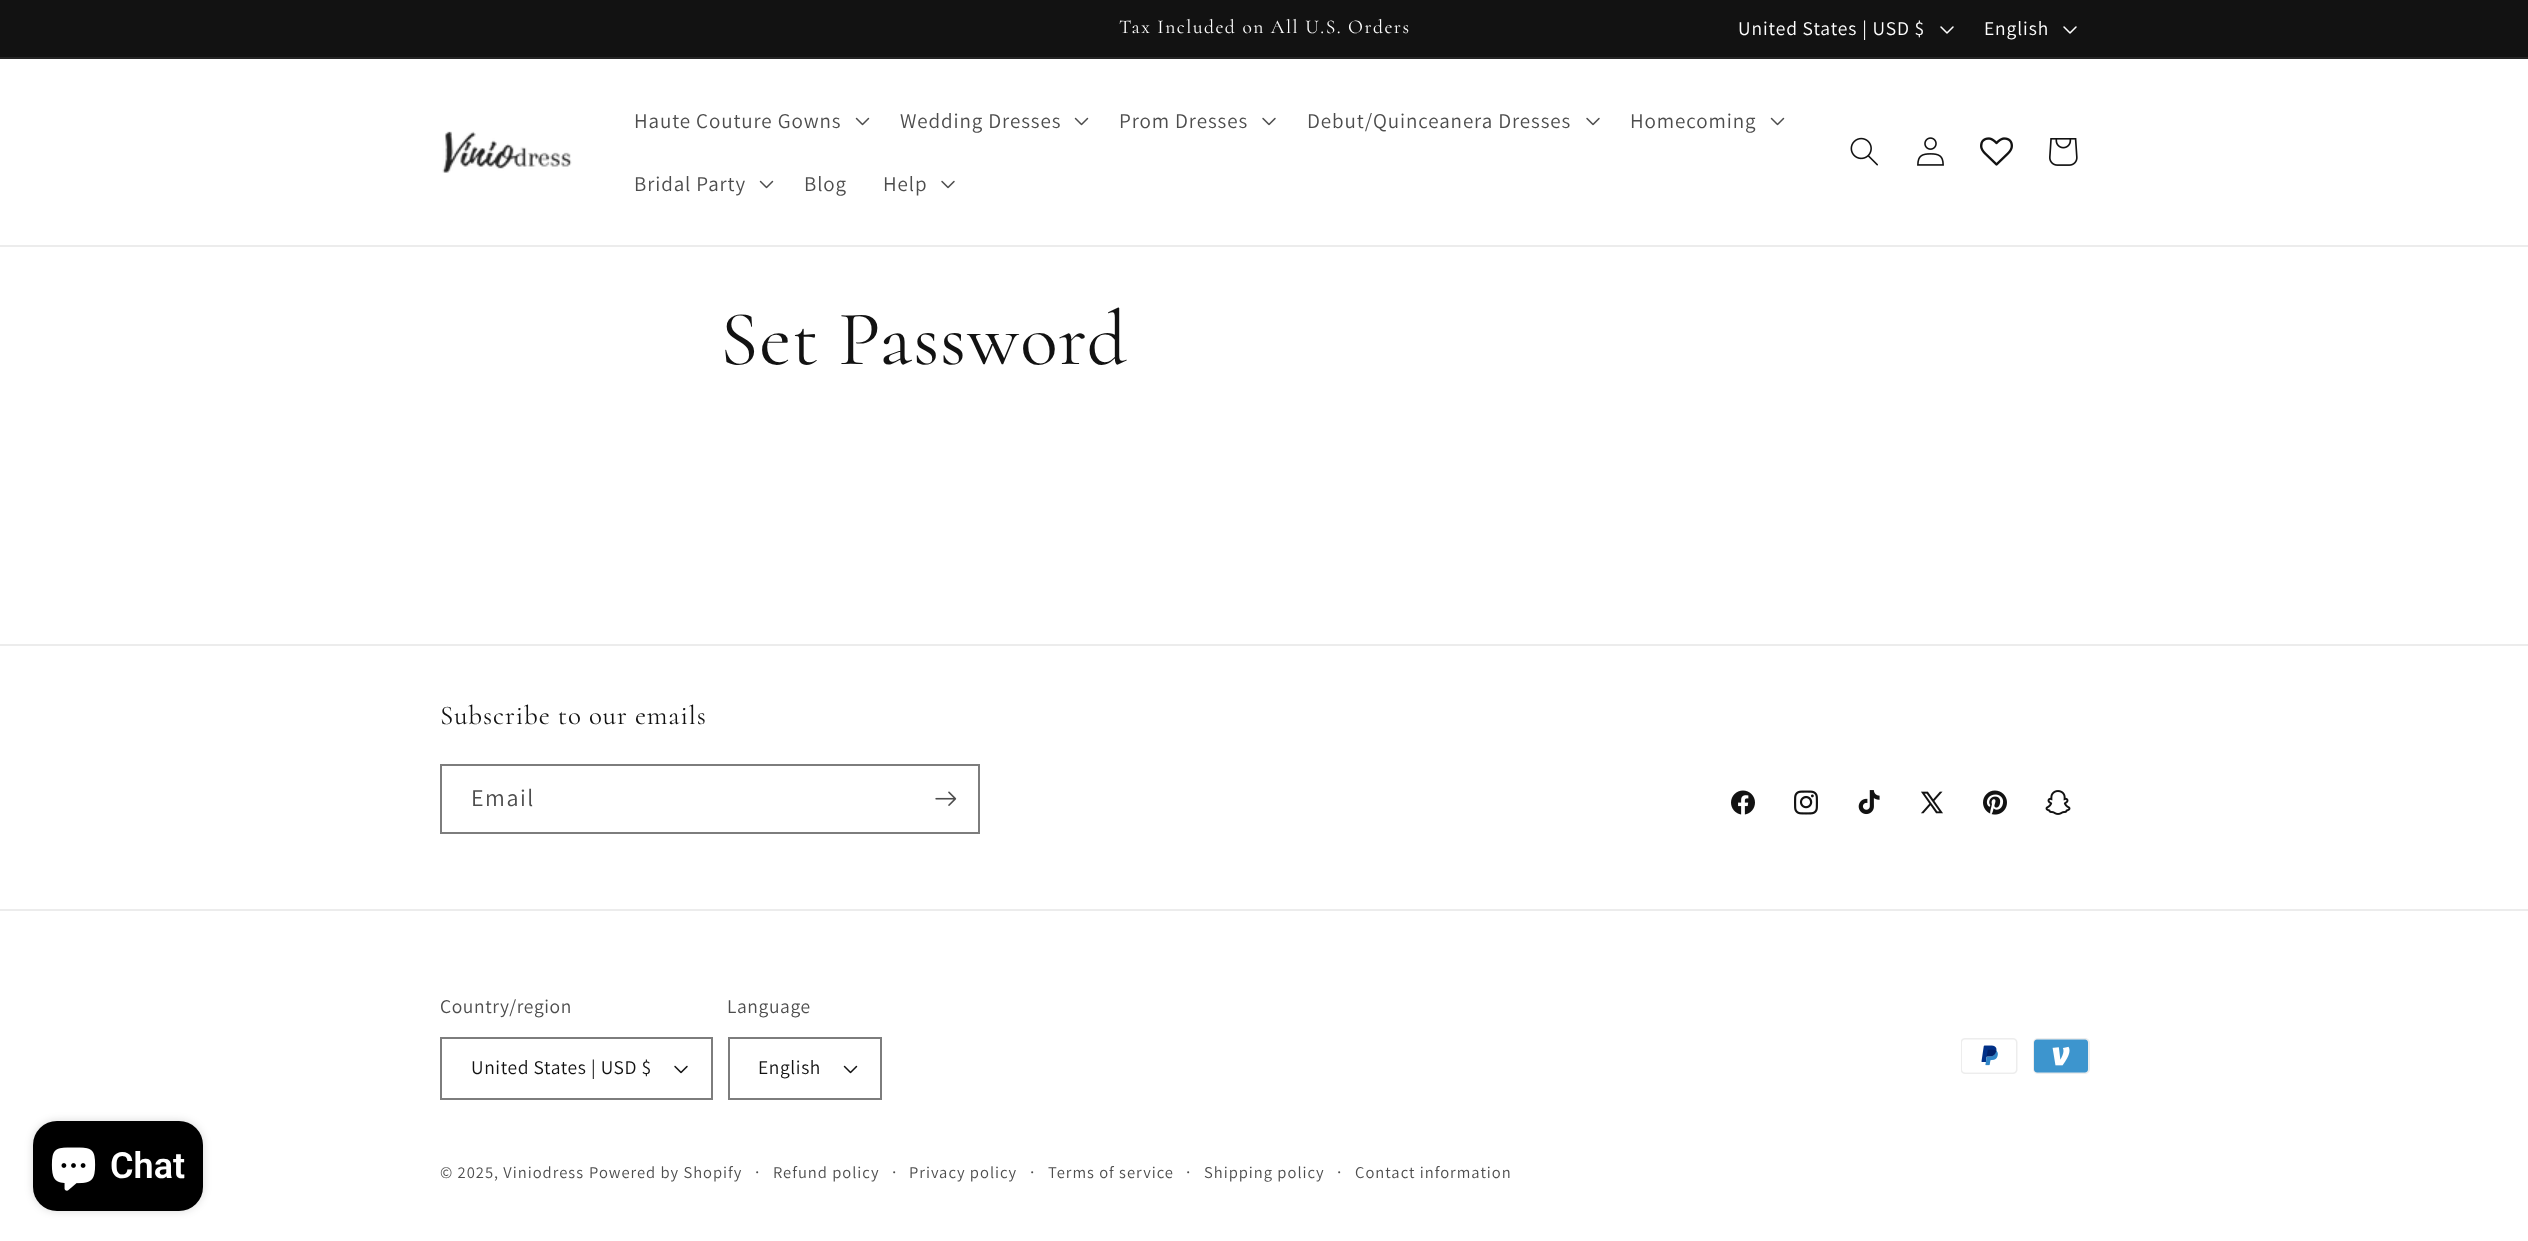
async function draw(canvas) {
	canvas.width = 2528;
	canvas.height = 1241;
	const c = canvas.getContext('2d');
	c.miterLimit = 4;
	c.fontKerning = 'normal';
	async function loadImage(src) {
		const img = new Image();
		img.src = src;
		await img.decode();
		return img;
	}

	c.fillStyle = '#fff';
	c.fillRect(0, 0, 2528, 1241);
	c.fillStyle = '#121212';
	c.fillRect(0, 0, 2528, 57);
	c.fillStyle = '#252525';
	c.fillRect(0, 57, 2528, 2);
	c.letterSpacing = '1.5px';
	c.font = '19.5px Cormorant';
	c.fillStyle = '#fff';
	c.fillText('Tax Included on All U.S. Orders', 1119, 33);
	c.letterSpacing = '0.9px';
	c.font = '19.5px Assistant';
	c.fillText('United States | USD $', 1738, 35);
	c.drawImage(await loadImage('img1.png'), 1940, 26, 14, 8);
	c.fillText('English', 1984, 35);
	c.drawImage(await loadImage('img1.png'), 2063, 26, 14, 8);
	c.fillStyle = '#ececec';
	c.fillRect(0, 245, 2528, 2);
	c.drawImage(await loadImage('img2.png'), 442, 131, 130, 42);
	c.font = '21px Assistant';
	c.fillStyle = '#4d4d4d';
	c.fillText('Haute Couture Gowns', 634, 128);
	c.drawImage(await loadImage('img3.png'), 855, 117, 15, 9);
	c.fillText('Wedding Dresses', 900, 128);
	c.drawImage(await loadImage('img3.png'), 1074, 117, 15, 9);
	c.fillText('Prom Dresses', 1119, 128);
	c.drawImage(await loadImage('img4.png'), 1262, 117, 14, 9);
	c.fillText('Debut/Quinceanera Dresses', 1307, 128);
	c.drawImage(await loadImage('img4.png'), 1586, 117, 14, 9);
	c.fillText('Homecoming', 1630, 128);
	c.drawImage(await loadImage('img3.png'), 1770, 117, 15, 9);
	c.fillText('Bridal Party', 634, 191);
	c.drawImage(await loadImage('img3.png'), 759, 180, 15, 9);
	c.fillText('Blog', 804, 191);
	c.fillText('Help', 883, 191);
	c.drawImage(await loadImage('img4.png'), 941, 180, 14, 9);
	c.drawImage(await loadImage('img5.png'), 1850, 137, 28, 29);
	c.drawImage(await loadImage('img6.png'), 1917, 137, 27, 29);
	c.drawImage(await loadImage('img7.png'), 1980, 137, 33, 29);
	c.drawImage(await loadImage('img8.png'), 2049, 138, 29, 28);
	c.font = '78px Cormorant';
	c.fillStyle = '#121212';
	c.fillText('Set Password', 720, 364);
	c.fillStyle = '#00000026';
	c.filter = 'blur(4px)';
	c.beginPath();
	c.roundRect(33, 1121, 170, 90, 24);
	c.fill();
	c.filter = 'none';
	c.fillStyle = '#000';
	c.beginPath();
	c.roundRect(33, 1121, 170, 90, 24);
	c.fill();
	c.drawImage(await loadImage('img9.png'), 51, 1147, 45, 44);
	c.letterSpacing = '0px';
	c.font = '600 36px Roboto';
	c.fillStyle = '#fff';
	c.fillText('Chat', 110, 1178);
	c.fillStyle = '#ececec';
	c.fillRect(0, 644, 2528, 2);
	c.letterSpacing = '0.9px';
	c.font = '27px Cormorant';
	c.fillStyle = '#121212';
	c.fillText('Subscribe to our emails', 440, 724);
	c.strokeStyle = '#7d7d7d';
	c.lineWidth = 2;
	c.strokeRect(441, 765, 538, 68);
	c.letterSpacing = '1.5px';
	c.font = '24px Assistant';
	c.fillStyle = '#4d4d4d';
	c.fillText('Email', 471, 806);
	c.drawImage(await loadImage('img10.png'), 935, 791, 22, 15);
	c.drawImage(await loadImage('img11.png'), 1731, 790, 24, 25);
	c.drawImage(await loadImage('img12.png'), 1794, 790, 24, 25);
	c.drawImage(await loadImage('img13.png'), 1858, 790, 22, 25);
	c.drawImage(await loadImage('img14.png'), 1921, 791, 22, 23);
	c.drawImage(await loadImage('img15.png'), 1983, 790, 24, 25);
	c.drawImage(await loadImage('img16.png'), 2045, 790, 26, 25);
	c.fillStyle = '#ececec';
	c.fillRect(0, 909, 2528, 2);
	c.letterSpacing = '0.6px';
	c.font = '19.5px Assistant';
	c.fillStyle = '#4d4d4d';
	c.fillText('Country/region', 440, 1013);
	c.drawImage(await loadImage('img17.png'), 674, 1065, 14, 9);
	c.strokeRect(441, 1038, 271, 61);
	c.fillStyle = '#121212';
	c.fillText('United States | USD $', 471, 1074);
	c.fillStyle = '#4d4d4d';
	c.fillText('Language', 727, 1013);
	c.drawImage(await loadImage('img18.png'), 843, 1065, 15, 9);
	c.strokeRect(729, 1038, 152, 61);
	c.fillStyle = '#121212';
	c.fillText('English', 758, 1074);
	c.drawImage(await loadImage('img19.png'), 1961, 1038, 57, 36);
	c.drawImage(await loadImage('img20.png'), 2033, 1038, 57, 36);
	c.letterSpacing = '1px';
	c.font = '16.5px Assistant';
	c.fillStyle = '#4d4d4d';
	c.fillText('© 2025, Viniodress', 440, 1178);
	c.fillText('Powered by Shopify', 589, 1178);
	c.font = '18px Assistant';
	c.fillText('·', 755, 1178);
	c.font = '16.5px Assistant';
	c.fillText('Refund policy', 773, 1178);
	c.font = '18px Assistant';
	c.fillText('·', 892, 1178);
	c.font = '16.5px Assistant';
	c.fillText('Privacy policy', 909, 1178);
	c.font = '18px Assistant';
	c.fillText('·', 1030, 1178);
	c.font = '16.5px Assistant';
	c.fillText('Terms of service', 1048, 1178);
	c.font = '18px Assistant';
	c.fillText('·', 1186, 1178);
	c.font = '16.5px Assistant';
	c.fillText('Shipping policy', 1204, 1178);
	c.font = '18px Assistant';
	c.fillText('·', 1337, 1178);
	c.font = '16.5px Assistant';
	c.fillText('Contact information', 1355, 1178);
}

draw(document.querySelector('canvas'));
